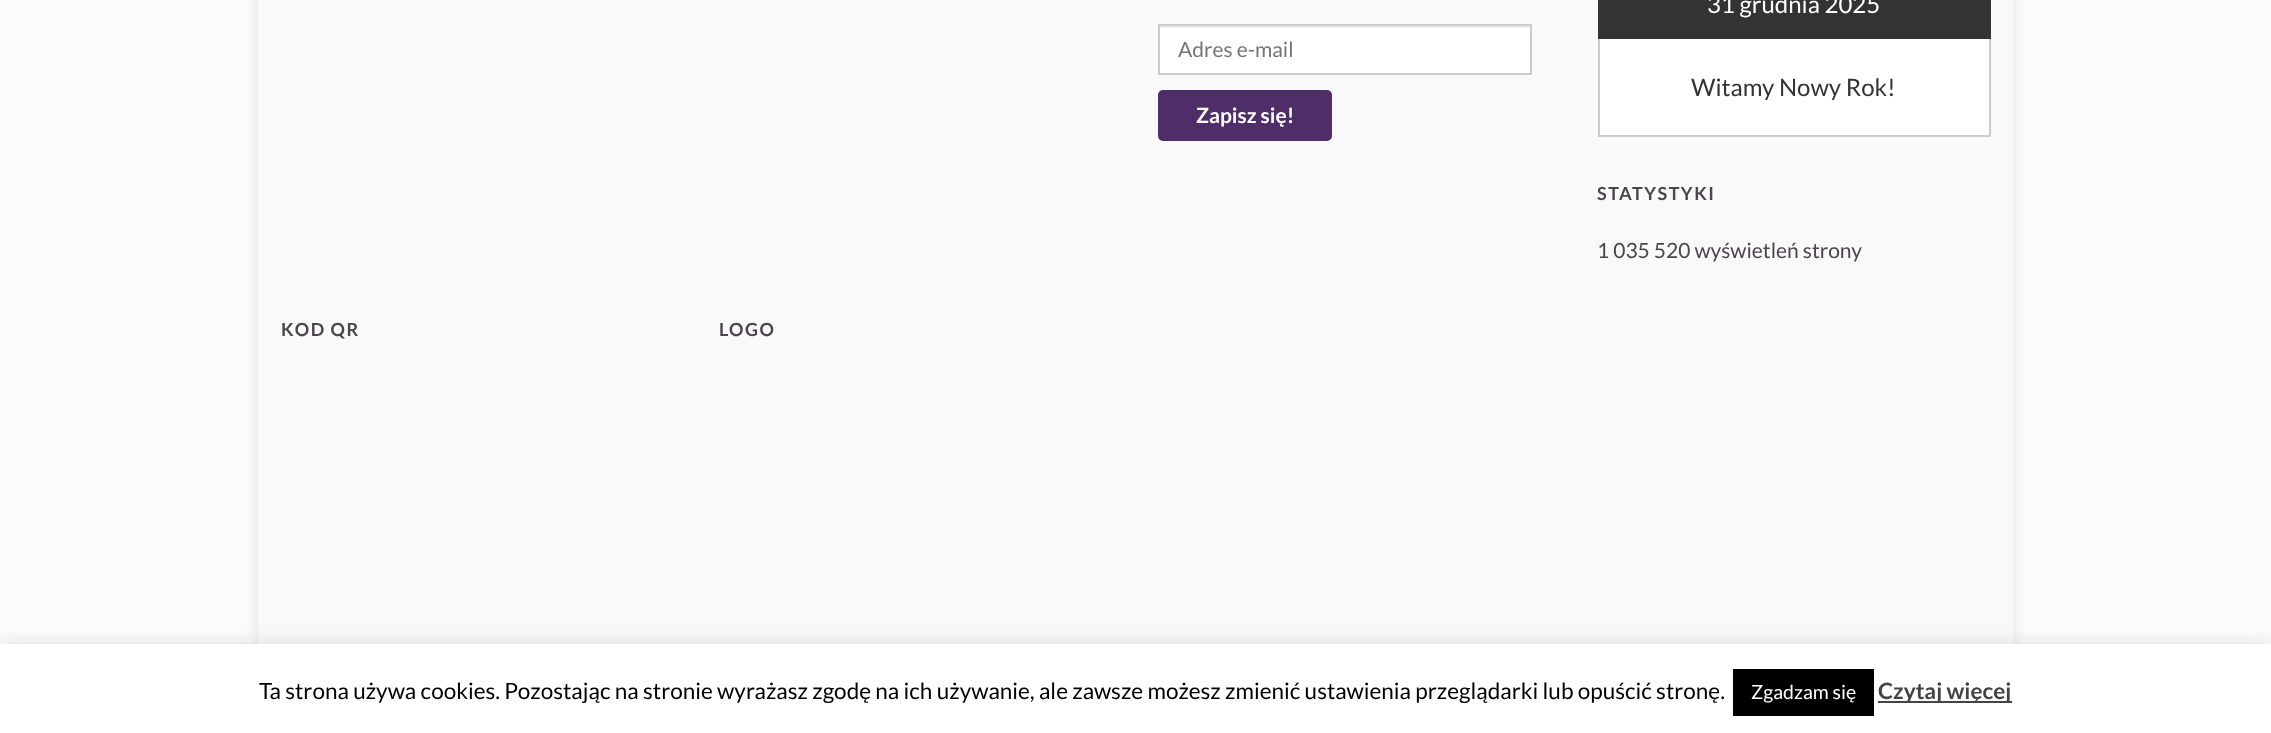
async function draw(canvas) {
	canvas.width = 2271;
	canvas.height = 733;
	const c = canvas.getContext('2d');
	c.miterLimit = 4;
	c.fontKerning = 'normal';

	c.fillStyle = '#fbfbfb';
	c.fillRect(0, 0, 2271, 733);
	c.fillStyle = '#0000001a';
	c.filter = 'blur(7.5px)';
	c.beginPath();
	c.rect(258, -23, 1755, 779);
	c.fill();
	c.filter = 'none';
	for (const [x, y, w, h, color] of [
		[258, 0, 1755, 644, '#f9f9f9'],
		[1160, 28, 370, 45, '#fff'],
		[1160, 26, 370, 2, '#ececec'],
	]) {
		c.fillStyle = color;
		c.fillRect(x, y, w, h);
	}
	c.strokeStyle = '#ccc';
	c.lineWidth = 2;
	c.strokeRect(1159, 25, 372, 49);
	c.font = '21px Lato';
	c.fillStyle = '#757575';
	c.fillText('Adres e-mail', 1178, 57);
	c.fillStyle = '#4f2d69';
	c.beginPath();
	c.roundRect(1158, 90, 174, 51, 5);
	c.fill();
	c.font = 'bold 21px Lato';
	c.fillStyle = '#fff';
	c.fillText('Zapisz się!', 1196, 123);
	c.fillStyle = '#333';
	c.fillRect(1598, 0, 393, 39);
	c.font = '24px Lato';
	c.fillStyle = '#fff';
	c.fillText('31 grudnia 2025', 1707, 13);
	for (const [x, y, w, h, color] of [
		[1600, 39, 389, 96, '#fff'],
		[1989, 39, 2, 98, '#ccc'],
		[1598, 135, 393, 2, '#ccc'],
		[1598, 39, 2, 98, '#ccc'],
	]) {
		c.fillStyle = color;
		c.fillRect(x, y, w, h);
	}
	c.fillStyle = '#333';
	c.fillText('Witamy Nowy Rok!', 1691, 96);
	c.letterSpacing = '1.5px';
	c.font = 'bold 18px Lato';
	c.fillStyle = '#4a474b';
	c.fillText('STATYSTYKI', 1597, 200);
	c.letterSpacing = '0px';
	c.font = '21px Lato';
	c.fillText('1 035 520 wyświetleń strony', 1597, 258);
	c.letterSpacing = '1.5px';
	c.font = 'bold 18px Lato';
	c.fillText('KOD QR', 281, 336);
	c.fillText('LOGO', 719, 336);
	c.fillStyle = '#acabab4d';
	c.filter = 'blur(7.5px)';
	c.beginPath();
	c.rect(0, 642, 2271, 90);
	c.fill();
	c.filter = 'none';
	c.fillStyle = '#fff';
	c.fillRect(0, 644, 2271, 89);
	c.letterSpacing = '0px';
	c.font = '22.5px Lato';
	c.fillStyle = '#000';
	c.fillText('Ta strona używa cookies. Pozostając na stronie wyrażasz zgodę na ich używanie, ale zawsze możesz zmienić ustawienia przeglądarki lub opuścić stronę.', 259, 699);
	c.fillRect(1733, 669, 141, 47);
	c.font = '19.5px Lato';
	c.fillStyle = '#fff';
	c.fillText('Zgadzam się', 1751, 699);
	c.fillStyle = '#444';
	c.fillRect(1878, 701, 134, 2);
	c.font = 'bold 22.5px Lato';
	c.fillText('Czytaj więcej', 1878, 699);
}

draw(document.querySelector('canvas'));
